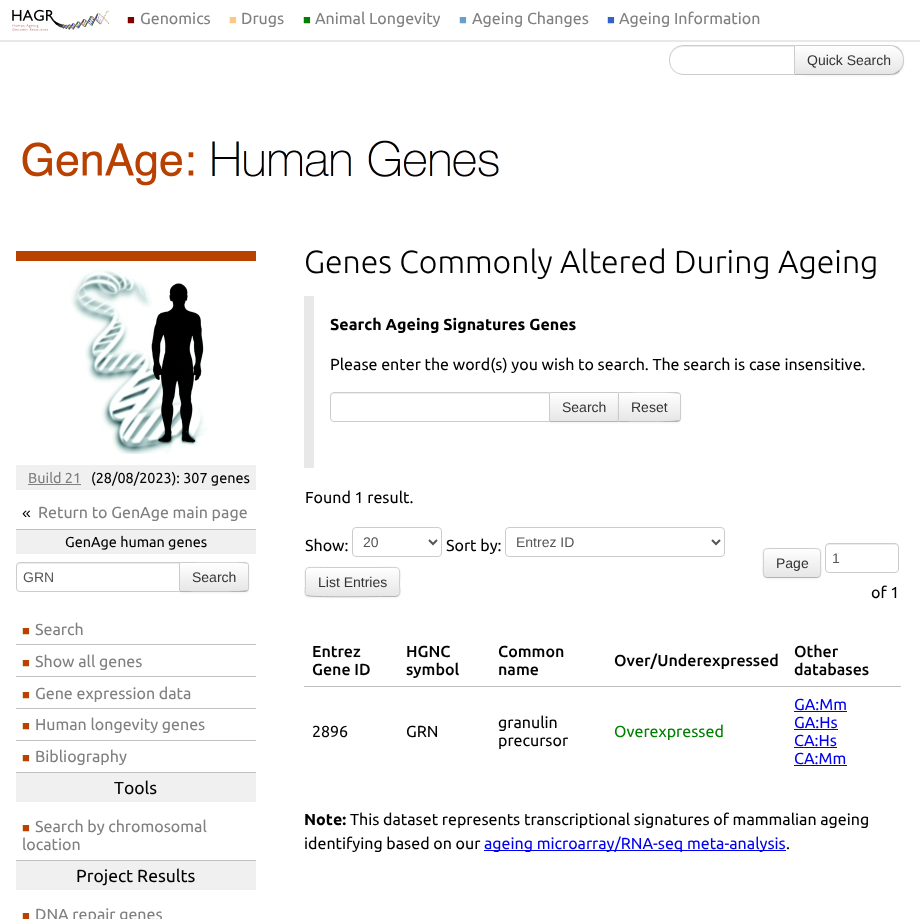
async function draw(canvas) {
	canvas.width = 920;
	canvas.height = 919;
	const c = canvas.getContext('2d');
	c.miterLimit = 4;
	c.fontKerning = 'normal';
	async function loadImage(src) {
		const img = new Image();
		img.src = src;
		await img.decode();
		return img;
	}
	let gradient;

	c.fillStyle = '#fff';
	c.fillRect(0, 0, 920, 919);
	c.fillStyle = '#e8e8e8';
	c.fillRect(0, 40, 920, 2);
	c.drawImage(await loadImage('img1.png'), 12, 9, 97, 22);
	c.font = '13px Liberation Sans';
	c.fillStyle = '#800000';
	c.fillText('■', 127, 24);
	c.font = '16px Ubuntu';
	c.fillStyle = '#808080';
	c.fillText('Genomics', 140, 24);
	c.font = '13px Liberation Sans';
	c.fillStyle = '#ffc882';
	c.fillText('■', 229, 24);
	c.font = '16px Ubuntu';
	c.fillStyle = '#808080';
	c.fillText('Drugs', 241, 24);
	c.font = '13px Liberation Sans';
	c.fillStyle = '#008000';
	c.fillText('■', 303, 24);
	c.font = '16px Ubuntu';
	c.fillStyle = '#808080';
	c.fillText('Animal Longevity', 315, 24);
	c.font = '13px Liberation Sans';
	c.fillStyle = '#679fcd';
	c.fillText('■', 459, 24);
	c.font = '16px Ubuntu';
	c.fillStyle = '#808080';
	c.fillText('Ageing Changes', 472, 24);
	c.font = '13px Liberation Sans';
	c.fillStyle = '#3264c7';
	c.fillText('■', 607, 24);
	c.font = '16px Ubuntu';
	c.fillStyle = '#808080';
	c.fillText('Ageing Information', 619, 24);
	c.fillStyle = '#0000000d';
	c.filter = 'blur(1px)';
	c.beginPath();
	c.roundRect(794, 46, 110, 30, 14);
	c.fill();
	c.filter = 'none';
	c.save();
	c.beginPath();
	c.roundRect(794, 45, 110, 30, [0, 14, 14, 0]);
	c.clip();
	gradient = c.createLinearGradient(849, 46, 849, 74);
	gradient.addColorStop(0, '#fff');
	gradient.addColorStop(1, '#e6e6e6');
	c.fillStyle = gradient;
	c.fillRect(795, 46, 109, 28);
	c.restore();
	c.fillStyle = '#ccc';
	c.beginPath();
	c.moveTo(794, 45);
	c.lineTo(795, 46);
	c.lineTo(890, 46);
	c.bezierCurveTo(894, 46, 897, 48, 899, 50);
	c.lineTo(900, 49);
	c.bezierCurveTo(898, 46, 894, 45, 890, 45);
	c.closePath();
	c.fill();
	c.beginPath();
	c.moveTo(904, 61);
	c.bezierCurveTo(904, 56.5, 903.5, 52.5, 900, 49);
	c.lineTo(899, 50);
	c.bezierCurveTo(904.5, 55, 904.5, 65, 899, 70);
	c.lineTo(900, 71);
	c.bezierCurveTo(902.5, 68.5, 904, 65, 904, 61);
	c.closePath();
	c.fill();
	c.fillStyle = '#b3b3b3';
	c.beginPath();
	c.moveTo(890, 75);
	c.bezierCurveTo(894, 75, 898, 74, 900, 71);
	c.lineTo(899, 70);
	c.bezierCurveTo(897, 72, 894, 74, 890, 74);
	c.lineTo(795, 74);
	c.lineTo(794, 75);
	c.closePath();
	c.fill();
	c.fillStyle = '#fff';
	c.beginPath();
	c.roundRect(669, 45, 126, 30, [14, 0, 0, 14]);
	c.fill();
	c.fillStyle = '#ececec';
	c.beginPath();
	c.moveTo(683, 47);
	c.lineTo(794, 47);
	c.lineTo(794, 46);
	c.lineTo(683, 46);
	c.bezierCurveTo(676, 46, 670, 52, 670, 59);
	c.lineTo(670, 60);
	c.bezierCurveTo(670, 53, 676, 47, 683, 47);
	c.closePath();
	c.fill();
	c.beginPath();
	c.roundRect(669.5, 45.5, 125, 29, [13.5, 0, 0, 13.5]);
	c.strokeStyle = '#ccc';
	c.stroke();
	c.font = '14px Liberation Sans';
	c.fillStyle = '#333';
	c.fillText('Quick Search', 807, 65);
	c.drawImage(await loadImage('img2.png'), 22, 140, 477, 46);
	c.fillStyle = '#ba4200';
	c.fillRect(16, 251, 240, 10);
	c.drawImage(await loadImage('img3.png'), 70, 269, 138, 185);
	c.fillStyle = '#f0f0f0';
	c.fillRect(16, 465, 240, 25);
	c.font = '14.4px Ubuntu';
	c.fillStyle = '#808080';
	c.fillText('Build 21', 28, 483);
	c.fillRect(28, 484, 53, 1);
	c.fillStyle = '#000';
	c.fillText('(28/08/2023): 307 genes', 91, 483);
	c.fillStyle = '#c0c0c0';
	c.fillRect(16, 529, 240, 1);
	c.font = '16px Liberation Sans';
	c.fillStyle = '#000';
	c.fillText('«', 22, 518);
	c.font = '16px Ubuntu';
	c.fillStyle = '#808080';
	c.fillText('Return to GenAge main page', 38, 518);
	c.fillStyle = '#f0f0f0';
	c.fillRect(16, 530, 240, 24);
	c.font = '14.4px Ubuntu';
	c.fillStyle = '#000';
	c.fillText('GenAge human genes', 65, 547);
	c.fillStyle = '#0000000d';
	c.filter = 'blur(1px)';
	c.beginPath();
	c.roundRect(179, 563, 70, 30, 4);
	c.fill();
	c.filter = 'none';
	c.fillStyle = '#f5f5f5';
	c.beginPath();
	c.roundRect(179, 562, 70, 30, [0, 4, 4, 0]);
	c.fill();
	c.save();
	c.beginPath();
	c.roundRect(179, 562, 70, 30, [0, 4, 4, 0]);
	c.clip();
	gradient = c.createLinearGradient(214, 563, 214, 591);
	gradient.addColorStop(0, '#fff');
	gradient.addColorStop(1, '#e6e6e6');
	c.fillStyle = gradient;
	c.fillRect(180, 563, 69, 28);
	c.restore();
	c.fillStyle = '#ccc';
	c.beginPath();
	c.moveTo(179, 562);
	c.lineTo(180, 563);
	c.bezierCurveTo(187, 563, 246, 562, 247, 564);
	c.lineTo(248, 563);
	c.lineTo(245, 562);
	c.closePath();
	c.fill();
	c.beginPath();
	c.moveTo(249, 588);
	c.lineTo(249, 566);
	c.bezierCurveTo(249, 565, 248.5, 564, 248, 563);
	c.lineTo(247, 564);
	c.bezierCurveTo(248, 564, 248, 565, 248, 566);
	c.lineTo(248, 588);
	c.bezierCurveTo(248, 589, 248, 590, 247, 590);
	c.lineTo(248, 591);
	c.bezierCurveTo(248.5, 590, 249, 589, 249, 588);
	c.closePath();
	c.fill();
	c.fillStyle = '#b3b3b3';
	c.beginPath();
	c.moveTo(245, 592);
	c.lineTo(248, 591);
	c.lineTo(247, 590);
	c.bezierCurveTo(246, 592, 187, 591, 180, 591);
	c.lineTo(179, 592);
	c.closePath();
	c.fill();
	c.fillStyle = '#fff';
	c.beginPath();
	c.roundRect(16, 562, 164, 30, [4, 0, 0, 4]);
	c.fill();
	c.fillStyle = '#ececec';
	c.beginPath();
	c.moveTo(20, 564);
	c.lineTo(179, 564);
	c.lineTo(179, 563);
	c.lineTo(20, 563);
	c.bezierCurveTo(18, 563, 17, 565, 17, 567);
	c.bezierCurveTo(17, 565, 18, 564, 20, 564);
	c.closePath();
	c.fill();
	c.beginPath();
	c.roundRect(16.5, 562.5, 163, 29, [3.5, 0, 0, 3.5]);
	c.stroke();
	c.font = '14px Liberation Sans';
	c.fillStyle = '#555';
	c.fillText('GRN', 23, 582);
	c.fillStyle = '#333';
	c.fillText('Search', 192, 582);
	c.fillStyle = '#c0c0c0';
	c.fillRect(16, 644, 240, 1);
	c.font = '13px Liberation Sans';
	c.fillStyle = '#ba4200';
	c.fillText('■', 22, 635);
	c.font = '16px Ubuntu';
	c.fillStyle = '#808080';
	c.fillText('Search', 35, 635);
	c.fillStyle = '#c0c0c0';
	c.fillRect(16, 676, 240, 1);
	c.font = '13px Liberation Sans';
	c.fillStyle = '#ba4200';
	c.fillText('■', 22, 667);
	c.font = '16px Ubuntu';
	c.fillStyle = '#808080';
	c.fillText('Show all genes', 35, 667);
	c.fillStyle = '#c0c0c0';
	c.fillRect(16, 708, 240, 1);
	c.font = '13px Liberation Sans';
	c.fillStyle = '#ba4200';
	c.fillText('■', 22, 699);
	c.font = '16px Ubuntu';
	c.fillStyle = '#808080';
	c.fillText('Gene expression data', 35, 699);
	c.fillStyle = '#c0c0c0';
	c.fillRect(16, 740, 240, 1);
	c.font = '13px Liberation Sans';
	c.fillStyle = '#ba4200';
	c.fillText('■', 22, 730);
	c.font = '16px Ubuntu';
	c.fillStyle = '#808080';
	c.fillText('Human longevity genes', 35, 730);
	c.fillStyle = '#c0c0c0';
	c.fillRect(16, 772, 240, 1);
	c.font = '13px Liberation Sans';
	c.fillStyle = '#ba4200';
	c.fillText('■', 22, 762);
	c.font = '16px Ubuntu';
	c.fillStyle = '#808080';
	c.fillText('Bibliography', 35, 762);
	c.fillStyle = '#f0f0f0';
	c.fillRect(16, 773, 240, 29);
	c.font = '17.5px Ubuntu';
	c.fillStyle = '#000';
	c.fillText('Tools', 114, 794);
	c.fillStyle = '#c0c0c0';
	c.fillRect(16, 860, 240, 1);
	c.font = '13px Liberation Sans';
	c.fillStyle = '#ba4200';
	c.fillText('■', 22, 832);
	c.font = '16px Ubuntu';
	c.fillStyle = '#808080';
	c.fillText('Search by chromosomal', 35, 832);
	c.fillText('location', 22, 850);
	c.fillStyle = '#f0f0f0';
	c.fillRect(16, 861, 240, 29);
	c.font = '17.5px Ubuntu';
	c.fillStyle = '#000';
	c.fillText('Project Results', 76, 882);
	c.font = '13px Liberation Sans';
	c.fillStyle = '#ba4200';
	c.fillText('■', 22, 920);
	c.font = '16px Ubuntu';
	c.fillStyle = '#808080';
	c.fillText('DNA repair genes', 35, 920);
	c.font = '300 32px Ubuntu';
	c.fillStyle = '#000';
	c.fillText('Genes Commonly Altered During Ageing', 304, 273);
	c.fillStyle = '#e8e8e8';
	c.fillRect(304, 296, 10, 172);
	c.font = 'bold 16px Ubuntu';
	c.fillStyle = '#000';
	c.fillText('Search Ageing Signatures Genes', 330, 330);
	c.font = '16px Ubuntu';
	c.fillText('Please enter the word(s) you wish to search. The search is case insensitive.', 330, 370);
	c.fillStyle = '#0000000d';
	c.filter = 'blur(1px)';
	c.beginPath();
	c.rect(549, 393, 70, 30);
	c.fill();
	c.filter = 'none';
	c.fillStyle = '#ccc';
	c.fillRect(549, 392, 70, 1);
	c.fillStyle = '#b3b3b3';
	c.fillRect(549, 421, 70, 1);
	c.fillStyle = '#fff';
	c.beginPath();
	c.roundRect(330, 392, 220, 30, [4, 0, 0, 4]);
	c.fill();
	c.fillStyle = '#ececec';
	c.beginPath();
	c.moveTo(334, 394);
	c.lineTo(549, 394);
	c.lineTo(549, 393);
	c.lineTo(334, 393);
	c.bezierCurveTo(332, 393, 331, 394, 331, 396);
	c.lineTo(331, 397);
	c.bezierCurveTo(331, 395, 332, 394, 334, 394);
	c.closePath();
	c.fill();
	c.beginPath();
	c.roundRect(330.5, 392.5, 219, 29, [3.5, 0, 0, 3.5]);
	c.stroke();
	gradient = c.createLinearGradient(584, 393, 584, 421);
	gradient.addColorStop(0, '#fff');
	gradient.addColorStop(1, '#e6e6e6');
	c.fillStyle = gradient;
	c.fillRect(550, 393, 68, 28);
	c.font = '14px Liberation Sans';
	c.fillStyle = '#333';
	c.fillText('Search', 562, 412);
	c.fillStyle = '#0000000d';
	c.filter = 'blur(1px)';
	c.beginPath();
	c.roundRect(618, 393, 63, 30, 4);
	c.fill();
	c.filter = 'none';
	c.fillStyle = '#f5f5f5';
	c.beginPath();
	c.roundRect(618, 392, 63, 30, [0, 4, 4, 0]);
	c.fill();
	c.save();
	c.beginPath();
	c.roundRect(618, 392, 63, 30, [0, 4, 4, 0]);
	c.clip();
	gradient = c.createLinearGradient(650, 393, 650, 421);
	gradient.addColorStop(0, '#fff');
	gradient.addColorStop(1, '#e6e6e6');
	c.fillStyle = gradient;
	c.fillRect(619, 393, 62, 28);
	c.restore();
	c.fillStyle = '#ccc';
	c.beginPath();
	c.moveTo(618, 392);
	c.lineTo(619, 393);
	c.bezierCurveTo(626, 393, 677, 392, 679, 394);
	c.lineTo(680, 393);
	c.lineTo(677, 392);
	c.closePath();
	c.fill();
	c.beginPath();
	c.moveTo(681, 418);
	c.lineTo(681, 396);
	c.bezierCurveTo(681, 395, 680.5, 394, 680, 393);
	c.lineTo(679, 394);
	c.bezierCurveTo(680, 394, 680, 395, 680, 396);
	c.lineTo(680, 418);
	c.bezierCurveTo(680, 419, 680, 420, 679, 420);
	c.lineTo(680, 421);
	c.bezierCurveTo(680.5, 420, 681, 419, 681, 418);
	c.closePath();
	c.fill();
	c.fillStyle = '#b3b3b3';
	c.beginPath();
	c.moveTo(677, 422);
	c.lineTo(680, 421);
	c.lineTo(679, 420);
	c.bezierCurveTo(677, 422, 626, 421, 619, 421);
	c.lineTo(618, 422);
	c.closePath();
	c.fill();
	c.fillStyle = '#ccc';
	c.beginPath();
	c.moveTo(618, 392);
	c.lineTo(618, 422);
	c.lineTo(619, 421);
	c.lineTo(619, 393);
	c.closePath();
	c.fill();
	c.fillStyle = '#333';
	c.fillText('Reset', 631, 412);
	c.font = '16px Ubuntu';
	c.fillStyle = '#000';
	c.fillText('Found 1 result.', 305, 503);
	c.fillText('Show:', 305, 551);
	c.beginPath();
	c.roundRect(352.5, 527.5, 89, 29, 3.5);
	c.stroke();
	c.beginPath();
	c.moveTo(429, 540);
	c.lineTo(433, 544);
	c.lineTo(437, 540);
	c.strokeStyle = '#555';
	c.lineWidth = 2;
	c.stroke();
	c.font = '14px Liberation Sans';
	c.fillStyle = '#555';
	c.fillText('20', 363, 547);
	c.font = '16px Ubuntu';
	c.fillStyle = '#000';
	c.fillText('Sort by:', 446, 551);
	c.beginPath();
	c.roundRect(505.5, 527.5, 219, 29, 3.5);
	c.strokeStyle = '#ccc';
	c.lineWidth = 1;
	c.stroke();
	c.beginPath();
	c.moveTo(712, 540);
	c.lineTo(716, 544);
	c.lineTo(720, 540);
	c.strokeStyle = '#555';
	c.lineWidth = 2;
	c.stroke();
	c.font = '14px Liberation Sans';
	c.fillStyle = '#555';
	c.fillText('Entrez ID', 516, 547);
	c.fillStyle = '#0000000d';
	c.filter = 'blur(1px)';
	c.beginPath();
	c.roundRect(305, 568, 95, 30, 4);
	c.fill();
	c.filter = 'none';
	c.fillStyle = '#f5f5f5';
	c.beginPath();
	c.roundRect(305, 567, 95, 30, 4);
	c.fill();
	c.save();
	c.beginPath();
	c.roundRect(305, 567, 95, 30, 4);
	c.clip();
	gradient = c.createLinearGradient(353, 568, 353, 596);
	gradient.addColorStop(0, '#fff');
	gradient.addColorStop(1, '#e6e6e6');
	c.fillStyle = gradient;
	c.fillRect(305, 568, 95, 28);
	c.restore();
	c.beginPath();
	c.moveTo(398.5, 595.5);
	c.lineTo(396, 596.5);
	c.lineTo(381.5, 596.5);
	c.bezierCurveTo(373, 596.5, 309, 597.5, 307, 595.5);
	c.lineTo(306.5, 595.5);
	c.strokeStyle = '#b3b3b3';
	c.lineWidth = 1;
	c.stroke();
	c.beginPath();
	c.moveTo(306.5, 595.5);
	c.bezierCurveTo(304, 593, 305.5, 588.5, 305.5, 585.5);
	c.bezierCurveTo(305.5, 564.5, 302, 567.5, 323.5, 567.5);
	c.lineTo(381.5, 567.5);
	c.bezierCurveTo(403, 567.5, 399.5, 564.5, 399.5, 585.5);
	c.bezierCurveTo(399.5, 588.5, 401, 593, 398.5, 595.5);
	c.strokeStyle = '#ccc';
	c.stroke();
	c.fillStyle = '#333';
	c.fillText('List Entries', 318, 587);
	c.fillStyle = '#0000000d';
	c.filter = 'blur(1px)';
	c.beginPath();
	c.roundRect(763, 549, 58, 30, 4);
	c.fill();
	c.filter = 'none';
	c.fillStyle = '#f5f5f5';
	c.beginPath();
	c.roundRect(763, 548, 58, 30, 4);
	c.fill();
	c.save();
	c.beginPath();
	c.roundRect(763, 548, 58, 30, 4);
	c.clip();
	gradient = c.createLinearGradient(792, 549, 792, 577);
	gradient.addColorStop(0, '#fff');
	gradient.addColorStop(1, '#e6e6e6');
	c.fillStyle = gradient;
	c.fillRect(763, 549, 58, 28);
	c.restore();
	c.fillStyle = '#fff';
	c.beginPath();
	c.moveTo(767, 550);
	c.lineTo(817, 550);
	c.bezierCurveTo(819, 550, 820, 551, 820, 553);
	c.bezierCurveTo(820, 547, 813, 549, 809, 549);
	c.lineTo(775, 549);
	c.bezierCurveTo(771, 549, 764, 547, 764, 553);
	c.bezierCurveTo(764, 551, 765, 550, 767, 550);
	c.closePath();
	c.fill();
	c.beginPath();
	c.moveTo(819.5, 576.5);
	c.lineTo(817.5, 577.5);
	c.lineTo(766.5, 577.5);
	c.lineTo(764.5, 576.5);
	c.strokeStyle = '#b3b3b3';
	c.stroke();
	c.beginPath();
	c.moveTo(764.5, 576.5);
	c.bezierCurveTo(762.5, 574.5, 763.5, 566, 763.5, 563);
	c.bezierCurveTo(763.5, 548, 761, 548.5, 775.5, 548.5);
	c.lineTo(808.5, 548.5);
	c.bezierCurveTo(823, 548.5, 820.5, 548, 820.5, 563);
	c.bezierCurveTo(820.5, 566, 821.5, 574.5, 819.5, 576.5);
	c.strokeStyle = '#ccc';
	c.stroke();
	c.fillStyle = '#333';
	c.fillText('Page', 776, 568);
	c.fillStyle = '#ececec';
	c.beginPath();
	c.moveTo(829, 545);
	c.lineTo(895, 545);
	c.bezierCurveTo(897, 545, 898, 546, 898, 548);
	c.bezierCurveTo(898, 541, 888, 544, 884, 544);
	c.lineTo(840, 544);
	c.bezierCurveTo(836, 544, 826, 541, 826, 548);
	c.bezierCurveTo(826, 546, 827, 545, 829, 545);
	c.closePath();
	c.fill();
	c.beginPath();
	c.roundRect(825.5, 543.5, 73, 29, 3.5);
	c.stroke();
	c.fillStyle = '#555';
	c.fillText('1', 832, 563);
	c.font = '16px Ubuntu';
	c.fillStyle = '#000';
	c.fillText('of 1', 871, 598);
	c.font = '500 16px Ubuntu';
	for (const [text, x, y] of [
		['Entrez', 312, 657],
		['Gene ID', 312, 675],
		['HGNC', 406, 657],
		['symbol', 406, 675],
		['Common', 498, 657],
		['name', 498, 675],
		['Over/Underexpressed', 614, 666],
	]) {
		c.fillText(text, x, y);
	}
	c.fillStyle = '#c0c0c0';
	c.fillRect(304, 686, 597, 1);
	c.fillStyle = '#000';
	c.fillText('Other', 794, 657);
	c.fillText('databases', 794, 675);
	c.font = '16px Ubuntu';
	for (const [text, x, y] of [
		['2896', 312, 737],
		['GRN', 406, 737],
		['granulin', 498, 728],
		['precursor', 498, 746],
	]) {
		c.fillText(text, x, y);
	}
	c.fillStyle = '#008000';
	c.fillText('Overexpressed', 614, 737);
	c.fillStyle = '#00e';
	c.fillText('GA:Mm', 794, 710);
	c.fillRect(794, 711, 53, 1);
	c.fillText('GA:Hs', 794, 728);
	c.fillRect(794, 729, 44, 1);
	c.fillText('CA:Hs', 794, 746);
	c.fillRect(794, 747, 43, 1);
	c.fillText('CA:Mm', 794, 764);
	c.fillRect(794, 765, 53, 1);
	c.font = 'bold 16px Ubuntu';
	c.fillStyle = '#000';
	c.fillText('Note:', 304, 825);
	c.font = '16px Ubuntu';
	c.fillText('This dataset represents transcriptional signatures of mammalian ageing', 350, 825);
	c.fillText('identifying based on our', 304, 849);
	c.fillStyle = '#00e';
	c.fillRect(484, 850, 302, 1);
	c.fillText('ageing microarray/RNA-seq meta-analysis', 484, 849);
	c.fillStyle = '#000';
	c.fillText('.', 786, 849);
}

draw(document.querySelector('canvas'));
